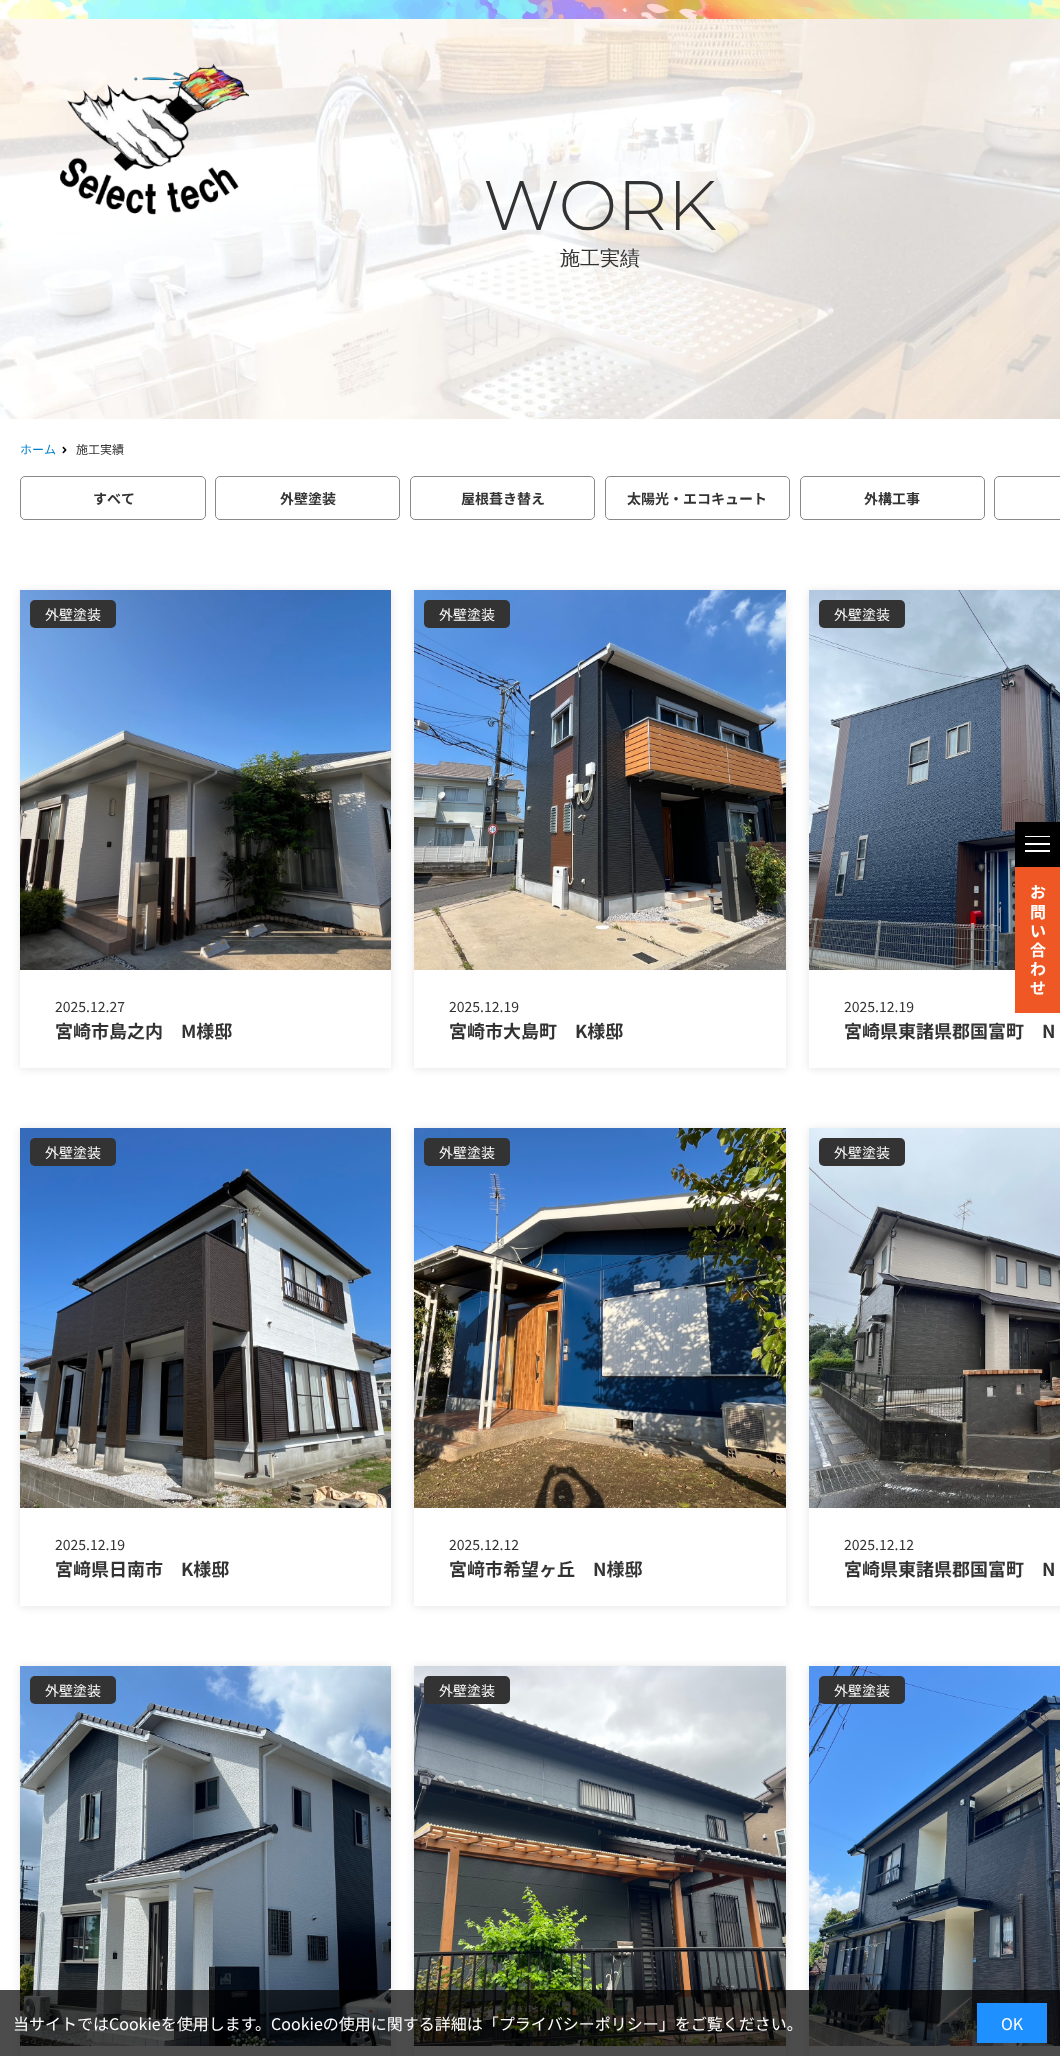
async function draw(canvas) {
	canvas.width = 1060;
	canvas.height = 2056;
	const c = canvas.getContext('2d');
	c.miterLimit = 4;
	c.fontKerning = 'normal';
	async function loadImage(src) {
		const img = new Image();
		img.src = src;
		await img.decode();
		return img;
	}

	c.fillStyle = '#fff';
	c.fillRect(0, 0, 1060, 2056);
	c.drawImage(await loadImage('img1.png'), 0, 0, 1060, 19);
	c.drawImage(await loadImage('img2.png'), 0, 19, 1060, 400);
	c.drawImage(await loadImage('img3.png'), 60, 63, 189, 152);
	c.font = '300 70px Montserrat';
	c.fillStyle = '#333';
	c.fillText('WORK', 483, 230);
	c.font = '500 20px WenQuanYi Zen Hei';
	c.fillText('施工実績', 560, 265);
	c.font = '12px Noto Sans JP';
	c.fillStyle = '#0080d0';
	c.fillText('ホーム', 20, 454);
	c.drawImage(await loadImage('img4.png'), 62, 446, 5, 8);
	c.fillStyle = '#333';
	c.fillText('施工実績', 76, 454);
	c.beginPath();
	c.roundRect(20.5, 476.5, 185, 43, 4.5);
	c.strokeStyle = '#888';
	c.stroke();
	c.font = 'bold 14px Noto Sans JP';
	c.fillText('すべて', 93, 504);
	c.beginPath();
	c.roundRect(215.5, 476.5, 184, 43, 4.5);
	c.stroke();
	c.fillText('外壁塗装', 280, 504);
	c.beginPath();
	c.roundRect(410.5, 476.5, 184, 43, 4.5);
	c.stroke();
	c.fillText('屋根葺き替え', 461, 504);
	c.beginPath();
	c.roundRect(605.5, 476.5, 184, 43, 4.5);
	c.stroke();
	c.fillText('太陽光・エコキュート', 627, 504);
	c.beginPath();
	c.roundRect(800.5, 476.5, 184, 43, 4.5);
	c.stroke();
	c.fillText('外構工事', 864, 504);
	c.beginPath();
	c.roundRect(994.5, 476.5, 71, 43, 4.5);
	c.stroke();
	c.save();
	c.beginPath();
	c.moveTo(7, 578);
	c.lineTo(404, 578);
	c.lineTo(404, 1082);
	c.lineTo(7, 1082);
	c.closePath();
	c.moveTo(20, 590);
	c.lineTo(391, 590);
	c.lineTo(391, 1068);
	c.lineTo(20, 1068);
	c.closePath();
	c.clip('evenodd');
	c.fillStyle = '#0000001a';
	c.filter = 'blur(4px)';
	c.beginPath();
	c.rect(20, 591, 371, 478);
	c.fill();
	c.filter = 'none';
	c.restore();
	c.drawImage(await loadImage('img5.png'), 20, 590, 371, 380);
	c.beginPath();
	c.roundRect(30, 600, 86, 28, 5);
	c.fill();
	c.font = '14px Noto Sans JP';
	c.fillStyle = '#fff';
	c.fillText('外壁塗装', 45, 620);
	c.fillStyle = '#333';
	c.fillText('2025.12.27', 55, 1012);
	c.font = 'bold 18px Noto Sans JP';
	c.fillText('宮崎市島之内　M様邸', 55, 1038);
	c.save();
	c.beginPath();
	c.moveTo(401, 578);
	c.lineTo(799, 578);
	c.lineTo(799, 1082);
	c.lineTo(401, 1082);
	c.closePath();
	c.moveTo(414, 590);
	c.lineTo(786, 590);
	c.lineTo(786, 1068);
	c.lineTo(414, 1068);
	c.closePath();
	c.clip('evenodd');
	c.fillStyle = '#0000001a';
	c.filter = 'blur(4px)';
	c.beginPath();
	c.rect(414, 591, 372, 478);
	c.fill();
	c.filter = 'none';
	c.restore();
	c.drawImage(await loadImage('img6.png'), 414, 590, 372, 380);
	c.beginPath();
	c.roundRect(424, 600, 86, 28, 5);
	c.fill();
	c.font = '14px Noto Sans JP';
	c.fillStyle = '#fff';
	c.fillText('外壁塗装', 439, 620);
	c.fillStyle = '#333';
	c.fillText('2025.12.19', 449, 1012);
	c.font = 'bold 18px Noto Sans JP';
	c.fillText('宮崎市大島町　K様邸', 449, 1038);
	c.save();
	c.beginPath();
	c.moveTo(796, 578);
	c.lineTo(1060, 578);
	c.lineTo(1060, 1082);
	c.lineTo(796, 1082);
	c.closePath();
	c.moveTo(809, 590);
	c.lineTo(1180, 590);
	c.lineTo(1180, 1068);
	c.lineTo(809, 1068);
	c.closePath();
	c.clip('evenodd');
	c.fillStyle = '#0000001a';
	c.filter = 'blur(4px)';
	c.beginPath();
	c.rect(809, 591, 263, 478);
	c.fill();
	c.filter = 'none';
	c.restore();
	c.drawImage(await loadImage('img7.png'), 809, 590, 251, 380);
	c.beginPath();
	c.roundRect(819, 600, 86, 28, 5);
	c.fill();
	c.font = '14px Noto Sans JP';
	c.fillStyle = '#fff';
	c.fillText('外壁塗装', 834, 620);
	c.fillStyle = '#333';
	c.fillText('2025.12.19', 844, 1012);
	c.font = 'bold 18px Noto Sans JP';
	c.fillText('宮崎県東諸県郡国富町　N', 844, 1038);
	c.save();
	c.beginPath();
	c.moveTo(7, 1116);
	c.lineTo(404, 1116);
	c.lineTo(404, 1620);
	c.lineTo(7, 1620);
	c.closePath();
	c.moveTo(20, 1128);
	c.lineTo(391, 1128);
	c.lineTo(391, 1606);
	c.lineTo(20, 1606);
	c.closePath();
	c.clip('evenodd');
	c.fillStyle = '#0000001a';
	c.filter = 'blur(4px)';
	c.beginPath();
	c.rect(20, 1129, 371, 478);
	c.fill();
	c.filter = 'none';
	c.restore();
	c.drawImage(await loadImage('img8.png'), 20, 1128, 371, 380);
	c.beginPath();
	c.roundRect(30, 1138, 86, 28, 5);
	c.fill();
	c.font = '14px Noto Sans JP';
	c.fillStyle = '#fff';
	c.fillText('外壁塗装', 45, 1158);
	c.fillStyle = '#333';
	c.fillText('2025.12.19', 55, 1550);
	c.font = 'bold 18px Noto Sans JP';
	c.fillText('宮﨑県日南市　K様邸', 55, 1576);
	c.save();
	c.beginPath();
	c.moveTo(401, 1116);
	c.lineTo(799, 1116);
	c.lineTo(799, 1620);
	c.lineTo(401, 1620);
	c.closePath();
	c.moveTo(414, 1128);
	c.lineTo(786, 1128);
	c.lineTo(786, 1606);
	c.lineTo(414, 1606);
	c.closePath();
	c.clip('evenodd');
	c.fillStyle = '#0000001a';
	c.filter = 'blur(4px)';
	c.beginPath();
	c.rect(414, 1129, 372, 478);
	c.fill();
	c.filter = 'none';
	c.restore();
	c.drawImage(await loadImage('img9.png'), 414, 1128, 372, 380);
	c.beginPath();
	c.roundRect(424, 1138, 86, 28, 5);
	c.fill();
	c.font = '14px Noto Sans JP';
	c.fillStyle = '#fff';
	c.fillText('外壁塗装', 439, 1158);
	c.fillStyle = '#333';
	c.fillText('2025.12.12', 449, 1550);
	c.font = 'bold 18px Noto Sans JP';
	c.fillText('宮﨑市希望ヶ丘　N様邸', 449, 1576);
	c.save();
	c.beginPath();
	c.moveTo(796, 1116);
	c.lineTo(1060, 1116);
	c.lineTo(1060, 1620);
	c.lineTo(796, 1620);
	c.closePath();
	c.moveTo(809, 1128);
	c.lineTo(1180, 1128);
	c.lineTo(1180, 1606);
	c.lineTo(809, 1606);
	c.closePath();
	c.clip('evenodd');
	c.fillStyle = '#0000001a';
	c.filter = 'blur(4px)';
	c.beginPath();
	c.rect(809, 1129, 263, 478);
	c.fill();
	c.filter = 'none';
	c.restore();
	c.drawImage(await loadImage('img10.png'), 809, 1128, 251, 380);
	c.beginPath();
	c.roundRect(819, 1138, 86, 28, 5);
	c.fill();
	c.font = '14px Noto Sans JP';
	c.fillStyle = '#fff';
	c.fillText('外壁塗装', 834, 1158);
	c.fillStyle = '#333';
	c.fillText('2025.12.12', 844, 1550);
	c.font = 'bold 18px Noto Sans JP';
	c.fillText('宮崎県東諸県郡国富町　N', 844, 1576);
	c.save();
	c.beginPath();
	c.moveTo(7, 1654);
	c.lineTo(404, 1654);
	c.lineTo(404, 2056);
	c.lineTo(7, 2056);
	c.closePath();
	c.moveTo(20, 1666);
	c.lineTo(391, 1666);
	c.lineTo(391, 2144);
	c.lineTo(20, 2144);
	c.closePath();
	c.clip('evenodd');
	c.fillStyle = '#0000001a';
	c.filter = 'blur(4px)';
	c.beginPath();
	c.rect(20, 1667, 371, 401);
	c.fill();
	c.filter = 'none';
	c.restore();
	c.drawImage(await loadImage('img11.png'), 20, 1666, 371, 380);
	c.beginPath();
	c.roundRect(30, 1676, 86, 28, 5);
	c.fill();
	c.font = '14px Noto Sans JP';
	c.fillStyle = '#fff';
	c.fillText('外壁塗装', 45, 1696);
	c.save();
	c.beginPath();
	c.moveTo(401, 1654);
	c.lineTo(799, 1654);
	c.lineTo(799, 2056);
	c.lineTo(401, 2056);
	c.closePath();
	c.moveTo(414, 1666);
	c.lineTo(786, 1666);
	c.lineTo(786, 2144);
	c.lineTo(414, 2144);
	c.closePath();
	c.clip('evenodd');
	c.fillStyle = '#0000001a';
	c.filter = 'blur(4px)';
	c.beginPath();
	c.rect(414, 1667, 372, 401);
	c.fill();
	c.filter = 'none';
	c.restore();
	c.drawImage(await loadImage('img12.png'), 414, 1666, 372, 380);
	c.fillStyle = '#333';
	c.beginPath();
	c.roundRect(424, 1676, 86, 28, 5);
	c.fill();
	c.fillStyle = '#fff';
	c.fillText('外壁塗装', 439, 1696);
	c.save();
	c.beginPath();
	c.moveTo(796, 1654);
	c.lineTo(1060, 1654);
	c.lineTo(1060, 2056);
	c.lineTo(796, 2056);
	c.closePath();
	c.moveTo(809, 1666);
	c.lineTo(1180, 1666);
	c.lineTo(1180, 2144);
	c.lineTo(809, 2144);
	c.closePath();
	c.clip('evenodd');
	c.fillStyle = '#0000001a';
	c.filter = 'blur(4px)';
	c.beginPath();
	c.rect(809, 1667, 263, 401);
	c.fill();
	c.filter = 'none';
	c.restore();
	c.drawImage(await loadImage('img13.png'), 809, 1666, 251, 380);
	c.fillStyle = '#333';
	c.beginPath();
	c.roundRect(819, 1676, 86, 28, 5);
	c.fill();
	c.fillStyle = '#fff';
	c.fillText('外壁塗装', 834, 1696);
	for (const [x, y, w, h, color] of [
		[1015, 822, 45, 45, '#000'],
		[1025, 836, 25, 1, '#fff'],
		[1025, 843, 25, 2, '#fff'],
		[1025, 850, 25, 2, '#fff'],
		[1015, 867, 45, 146, '#ef5825'],
	]) {
		c.fillStyle = color;
		c.fillRect(x, y, w, h);
	}
	c.font = 'bold 16px Noto Sans JP';
	c.fillStyle = '#fff';
	for (const [text, x, y] of [
		['お', 1030, 898],
		['問', 1030, 918],
		['い', 1030, 937],
		['合', 1030, 956],
		['わ', 1030, 975],
		['せ', 1030, 994],
	]) {
		c.fillText(text, x, y);
	}
	c.fillStyle = '#000000b3';
	c.fillRect(0, 1990, 1060, 66);
	c.font = '16px Noto Sans JP';
	c.fillStyle = '#fff';
	c.fillText('当サイトではCookieを使用します。Cookieの使用に関する詳細は「プライバシーポリシー」をご覧ください。', 13, 2030);
	c.fillStyle = '#1e90ff';
	c.fillRect(977, 2003, 70, 40);
	c.fillStyle = '#fff';
	c.fillText('OK', 1001, 2030);
}

draw(document.querySelector('canvas'));
